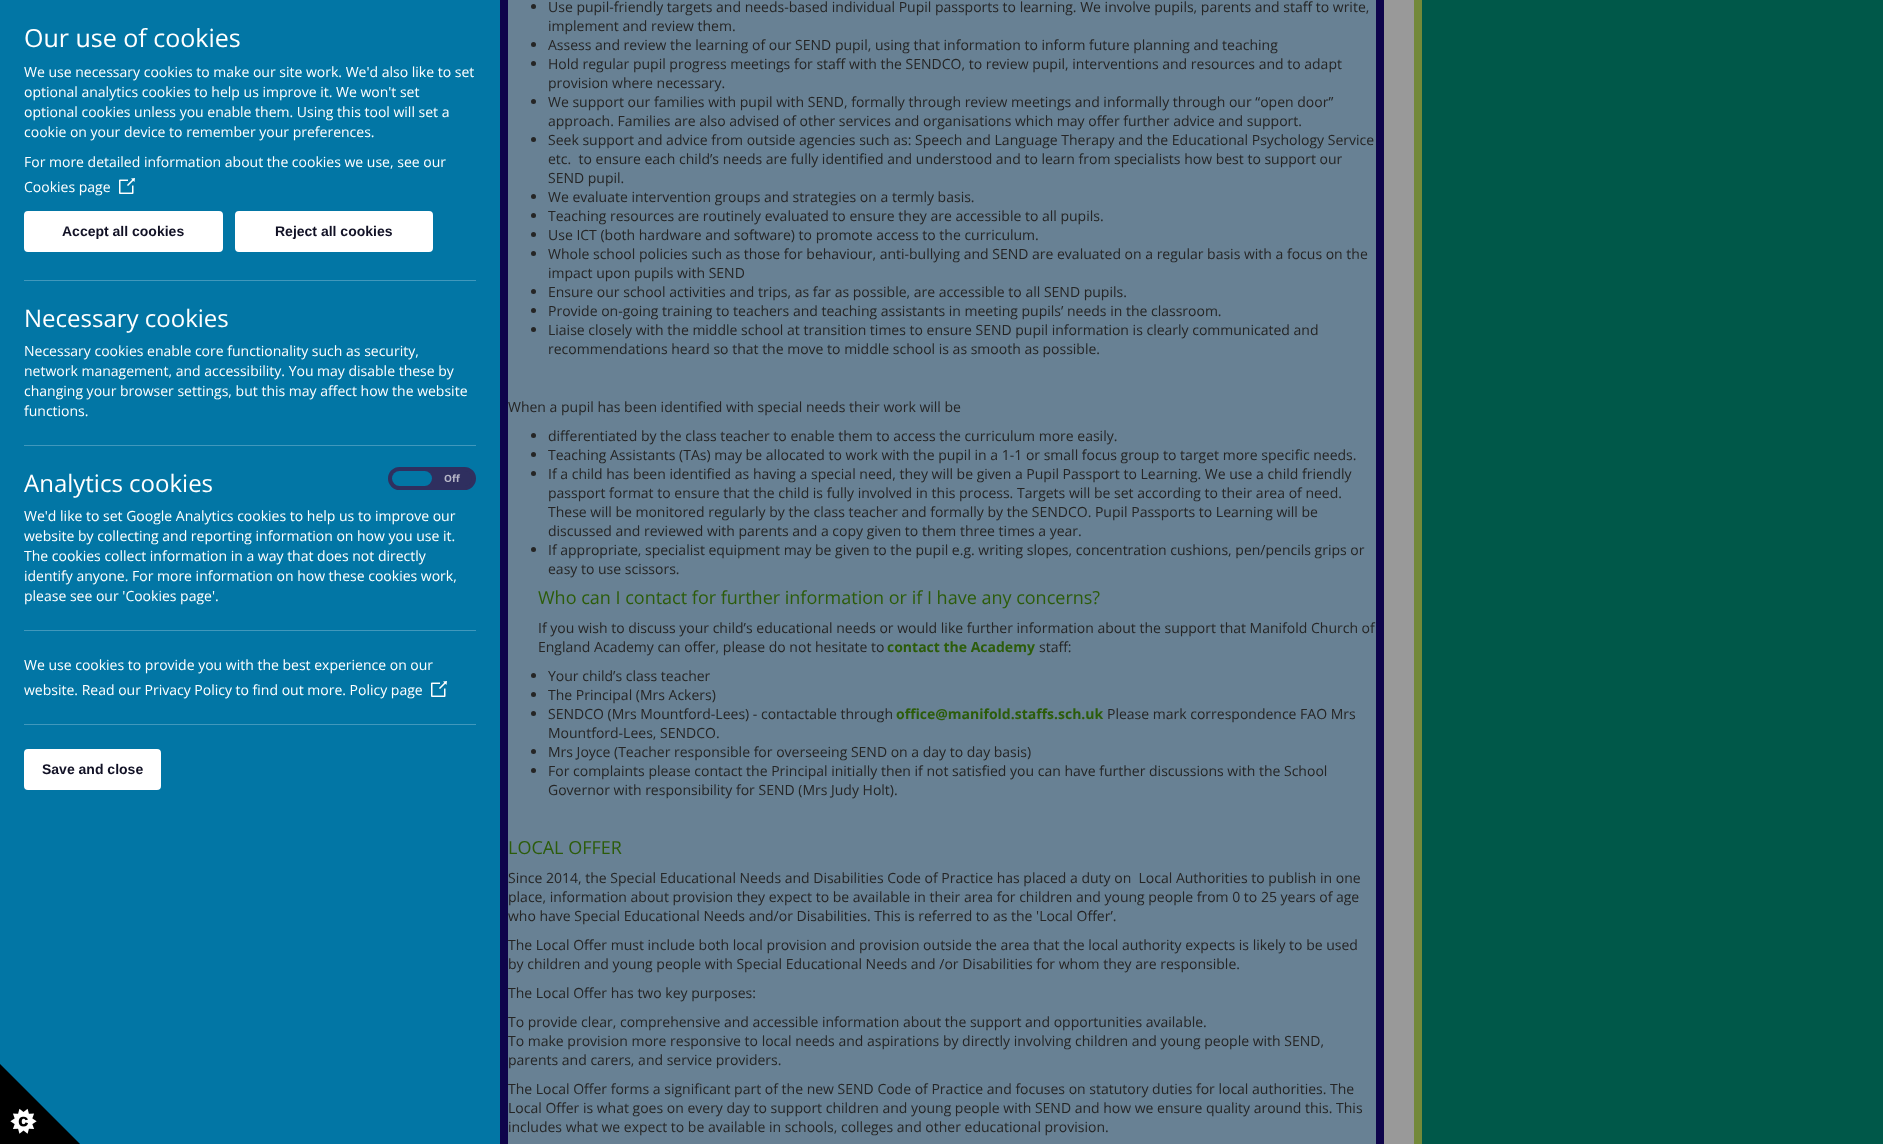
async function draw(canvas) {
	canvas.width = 1883;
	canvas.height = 1144;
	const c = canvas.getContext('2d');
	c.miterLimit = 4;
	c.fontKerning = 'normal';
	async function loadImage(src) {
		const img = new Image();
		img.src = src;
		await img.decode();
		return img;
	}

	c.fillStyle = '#005849';
	c.fillRect(0, 0, 1883, 1144);
	c.fillStyle = '#0276a5';
	c.fillRect(0, 0, 500, 1144);
	c.font = '25px Open Sans';
	c.fillStyle = '#fff';
	c.fillText('Our use of cookies', 24, 47);
	c.font = '14px Open Sans';
	for (const [text, x, y] of [
		['We use necessary cookies to make our site work. We\'d also like to set', 24, 77],
		['optional analytics cookies to help us improve it. We won\'t set', 24, 97],
		['optional cookies unless you enable them. Using this tool will set a', 24, 117],
		['cookie on your device to remember your preferences.', 24, 137],
		['For more detailed information about the cookies we use, see our', 24, 167],
		['Cookies page', 24, 192],
	]) {
		c.fillText(text, x, y);
	}
	c.drawImage(await loadImage('img1.png'), 119, 178, 16, 16);
	c.beginPath();
	c.roundRect(25, 212, 197, 39, 3);
	c.fill();
	c.strokeStyle = '#fff';
	c.lineWidth = 2;
	c.stroke();
	c.font = 'bold 14px Liberation Sans';
	c.fillStyle = '#111125';
	c.fillText('Accept all cookies', 62, 236);
	c.fillStyle = '#fff';
	c.beginPath();
	c.roundRect(236, 212, 196, 39, 3);
	c.fill();
	c.stroke();
	c.fillStyle = '#111125';
	c.fillText('Reject all cookies', 275, 236);
	c.fillStyle = '#4198bc';
	c.fillRect(24, 280, 452, 1);
	c.font = '24px Open Sans';
	c.fillStyle = '#fff';
	c.fillText('Necessary cookies', 24, 327);
	c.font = '14px Open Sans';
	for (const [text, x, y] of [
		['Necessary cookies enable core functionality such as security,', 24, 356],
		['network management, and accessibility. You may disable these by', 24, 376],
		['changing your browser settings, but this may affect how the website', 24, 396],
		['functions.', 24, 416],
	]) {
		c.fillText(text, x, y);
	}
	c.fillStyle = '#4198bc';
	c.fillRect(24, 445, 452, 1);
	c.font = '24px Open Sans';
	c.fillStyle = '#fff';
	c.fillText('Analytics cookies', 24, 492);
	c.fillStyle = '#2f2f5f';
	c.beginPath();
	c.roundRect(390, 469, 84, 19, 9.5);
	c.fill();
	c.strokeStyle = '#2f2f5f';
	c.lineWidth = 4;
	c.stroke();
	c.fillStyle = '#0276a5';
	c.beginPath();
	c.roundRect(392, 471, 40, 15, 7.5);
	c.fill();
	c.font = 'bold 10px Open Sans';
	c.fillStyle = '#b6b6c7';
	c.fillText('Off', 444, 482);
	c.font = '14px Open Sans';
	c.fillStyle = '#fff';
	for (const [text, x, y] of [
		['We\'d like to set Google Analytics cookies to help us to improve our', 24, 521],
		['website by collecting and reporting information on how you use it.', 24, 541],
		['The cookies collect information in a way that does not directly', 24, 561],
		['identify anyone. For more information on how these cookies work,', 24, 581],
		['please see our \'Cookies page\'.', 24, 601],
	]) {
		c.fillText(text, x, y);
	}
	c.fillStyle = '#4198bc';
	c.fillRect(24, 630, 452, 1);
	c.fillStyle = '#fff';
	c.fillText('We use cookies to provide you with the best experience on our', 24, 670);
	c.fillText('website. Read our Privacy Policy to find out more. Policy page', 24, 695);
	c.drawImage(await loadImage('img1.png'), 431, 681, 16, 16);
	c.fillStyle = '#4198bc';
	c.fillRect(24, 724, 452, 1);
	c.fillStyle = '#fff';
	c.beginPath();
	c.roundRect(25, 750, 135, 39, 3);
	c.fill();
	c.strokeStyle = '#fff';
	c.lineWidth = 2;
	c.stroke();
	c.font = 'bold 14px Liberation Sans';
	c.fillStyle = '#111125';
	c.fillText('Save and close', 42, 774);
	c.drawImage(await loadImage('img2.png'), 0, 1064, 80, 80);
	for (const [x, y, w, h, color] of [
		[1384, 0, 30, 1144, '#999'],
		[1414, 0, 8, 1144, '#738939'],
		[508, 0, 868, 1144, '#688194'],
		[1376, 0, 8, 1144, '#0e044b'],
		[500, 0, 8, 1144, '#0e044b'],
	]) {
		c.fillStyle = color;
		c.fillRect(x, y, w, h);
	}
	c.fillStyle = '#252525';
	c.beginPath();
	c.arc(533.5, 6.5, 2.5, 0, 2 * Math.PI);
	c.fill();
	c.font = '14px Open Sans';
	c.fillText('Use pupil-friendly targets and needs-based individual Pupil passports to learning. We involve pupils, parents and staff to write,', 548, 12);
	c.fillText('implement and review them.', 548, 31);
	c.beginPath();
	c.arc(533.5, 44.5, 2.5, 0, 2 * Math.PI);
	c.fill();
	c.fillText('Assess and review the learning of our SEND pupil, using that information to inform future planning and teaching', 548, 50);
	c.beginPath();
	c.arc(533.5, 63.5, 2.5, 0, 2 * Math.PI);
	c.fill();
	c.fillText('Hold regular pupil progress meetings for staff with the SENDCO, to review pupil, interventions and resources and to adapt', 548, 69);
	c.fillText('provision where necessary.', 548, 88);
	c.beginPath();
	c.arc(533.5, 101.5, 2.5, 0, 2 * Math.PI);
	c.fill();
	c.fillText('We support our families with pupil with SEND, formally through review meetings and informally through our “open door”', 548, 107);
	c.fillText('approach. Families are also advised of other services and organisations which may offer further advice and support.', 548, 126);
	c.beginPath();
	c.arc(533.5, 139.5, 2.5, 0, 2 * Math.PI);
	c.fill();
	for (const [text, x, y] of [
		['Seek support and advice from outside agencies such as: Speech and Language Therapy and the Educational Psychology Service', 548, 145],
		['etc.  to ensure each child’s needs are fully identified and understood and to learn from specialists how best to support our', 548, 164],
		['SEND pupil.', 548, 183],
	]) {
		c.fillText(text, x, y);
	}
	c.beginPath();
	c.arc(533.5, 196.5, 2.5, 0, 2 * Math.PI);
	c.fill();
	c.fillText('We evaluate intervention groups and strategies on a termly basis.', 548, 202);
	c.beginPath();
	c.arc(533.5, 215.5, 2.5, 0, 2 * Math.PI);
	c.fill();
	c.fillText('Teaching resources are routinely evaluated to ensure they are accessible to all pupils.', 548, 221);
	c.beginPath();
	c.arc(533.5, 234.5, 2.5, 0, 2 * Math.PI);
	c.fill();
	c.fillText('Use ICT (both hardware and software) to promote access to the curriculum.', 548, 240);
	c.beginPath();
	c.arc(533.5, 253.5, 2.5, 0, 2 * Math.PI);
	c.fill();
	c.fillText('Whole school policies such as those for behaviour, anti-bullying and SEND are evaluated on a regular basis with a focus on the', 548, 259);
	c.fillText('impact upon pupils with SEND', 548, 278);
	c.beginPath();
	c.arc(533.5, 291.5, 2.5, 0, 2 * Math.PI);
	c.fill();
	c.fillText('Ensure our school activities and trips, as far as possible, are accessible to all SEND pupils.', 548, 297);
	c.beginPath();
	c.arc(533.5, 310.5, 2.5, 0, 2 * Math.PI);
	c.fill();
	c.fillText('Provide on-going training to teachers and teaching assistants in meeting pupils’ needs in the classroom.', 548, 316);
	c.beginPath();
	c.arc(533.5, 329.5, 2.5, 0, 2 * Math.PI);
	c.fill();
	for (const [text, x, y] of [
		['Liaise closely with the middle school at transition times to ensure SEND pupil information is clearly communicated and', 548, 335],
		['recommendations heard so that the move to middle school is as smooth as possible.', 548, 354],
		['When a pupil has been identified with special needs their work will be', 508, 412],
	]) {
		c.fillText(text, x, y);
	}
	c.beginPath();
	c.arc(533.5, 435.5, 2.5, 0, 2 * Math.PI);
	c.fill();
	c.fillText('differentiated by the class teacher to enable them to access the curriculum more easily.', 548, 441);
	c.beginPath();
	c.arc(533.5, 454.5, 2.5, 0, 2 * Math.PI);
	c.fill();
	c.fillText('Teaching Assistants (TAs) may be allocated to work with the pupil in a 1-1 or small focus group to target more specific needs.', 548, 460);
	c.beginPath();
	c.arc(533.5, 473.5, 2.5, 0, 2 * Math.PI);
	c.fill();
	for (const [text, x, y] of [
		['If a child has been identified as having a special need, they will be given a Pupil Passport to Learning. We use a child friendly', 548, 479],
		['passport format to ensure that the child is fully involved in this process. Targets will be set according to their area of need.', 548, 498],
		['These will be monitored regularly by the class teacher and formally by the SENDCO. Pupil Passports to Learning will be', 548, 517],
		['discussed and reviewed with parents and a copy given to them three times a year.', 548, 536],
	]) {
		c.fillText(text, x, y);
	}
	c.beginPath();
	c.arc(533.5, 549.5, 2.5, 0, 2 * Math.PI);
	c.fill();
	c.fillText('If appropriate, specialist equipment may be given to the pupil e.g. writing slopes, concentration cushions, pen/pencils grips or', 548, 555);
	c.fillText('easy to use scissors.', 548, 574);
	c.font = '18px Open Sans';
	c.fillStyle = '#2c5c0a';
	c.fillText('Who can I contact for further information or if I have any concerns?', 538, 604);
	c.font = '14px Open Sans';
	c.fillStyle = '#252525';
	c.fillText('If you wish to discuss your child’s educational needs or would like further information about the support that Manifold Church of', 538, 633);
	c.fillText('England Academy can offer, please do not hesitate to', 538, 652);
	c.font = 'bold 14px Open Sans';
	c.fillStyle = '#2c5c0a';
	c.fillText('contact the Academy', 887, 652);
	c.font = '14px Open Sans';
	c.fillStyle = '#252525';
	c.fillText('staff:', 1039, 652);
	c.beginPath();
	c.arc(533.5, 675.5, 2.5, 0, 2 * Math.PI);
	c.fill();
	c.fillText('Your child’s class teacher', 548, 681);
	c.beginPath();
	c.arc(533.5, 694.5, 2.5, 0, 2 * Math.PI);
	c.fill();
	c.fillText('The Principal (Mrs Ackers)', 548, 700);
	c.beginPath();
	c.arc(533.5, 713.5, 2.5, 0, 2 * Math.PI);
	c.fill();
	c.fillText('SENDCO (Mrs Mountford-Lees) - contactable through', 548, 719);
	c.font = 'bold 14px Open Sans';
	c.fillStyle = '#2c5c0a';
	c.fillText('office@manifold.staffs.sch.uk', 896, 719);
	c.font = '14px Open Sans';
	c.fillStyle = '#252525';
	c.fillText('Please mark correspondence FAO Mrs', 1107, 719);
	c.fillText('Mountford-Lees, SENDCO.', 548, 738);
	c.beginPath();
	c.arc(533.5, 751.5, 2.5, 0, 2 * Math.PI);
	c.fill();
	c.fillText('Mrs Joyce (Teacher responsible for overseeing SEND on a day to day basis)', 548, 757);
	c.beginPath();
	c.arc(533.5, 770.5, 2.5, 0, 2 * Math.PI);
	c.fill();
	c.fillText('For complaints please contact the Principal initially then if not satisfied you can have further discussions with the School', 548, 776);
	c.fillText('Governor with responsibility for SEND (Mrs Judy Holt).', 548, 795);
	c.font = '18px Open Sans';
	c.fillStyle = '#2c5c0a';
	c.fillText('LOCAL OFFER', 508, 854);
	c.font = '14px Open Sans';
	c.fillStyle = '#252525';
	for (const [text, x, y] of [
		['Since 2014, the Special Educational Needs and Disabilities Code of Practice has placed a duty on  Local Authorities to publish in one', 508, 883],
		['place, information about provision they expect to be available in their area for children and young people from 0 to 25 years of age', 508, 902],
		['who have Special Educational Needs and/or Disabilities. This is referred to as the \'Local Offer’.', 508, 921],
		['The Local Offer must include both local provision and provision outside the area that the local authority expects is likely to be used', 508, 950],
		['by children and young people with Special Educational Needs and /or Disabilities for whom they are responsible.', 508, 969],
		['The Local Offer has two key purposes:', 508, 998],
		['To provide clear, comprehensive and accessible information about the support and opportunities available.', 508, 1027],
		['To make provision more responsive to local needs and aspirations by directly involving children and young people with SEND,', 508, 1046],
		['parents and carers, and service providers.', 508, 1065],
		['The Local Offer forms a significant part of the new SEND Code of Practice and focuses on statutory duties for local authorities. The', 508, 1094],
		['Local Offer is what goes on every day to support children and young people with SEND and how we ensure quality around this. This', 508, 1113],
		['includes what we expect to be available in schools, colleges and other educational provision.', 508, 1132],
	]) {
		c.fillText(text, x, y);
	}
}

draw(document.querySelector('canvas'));
